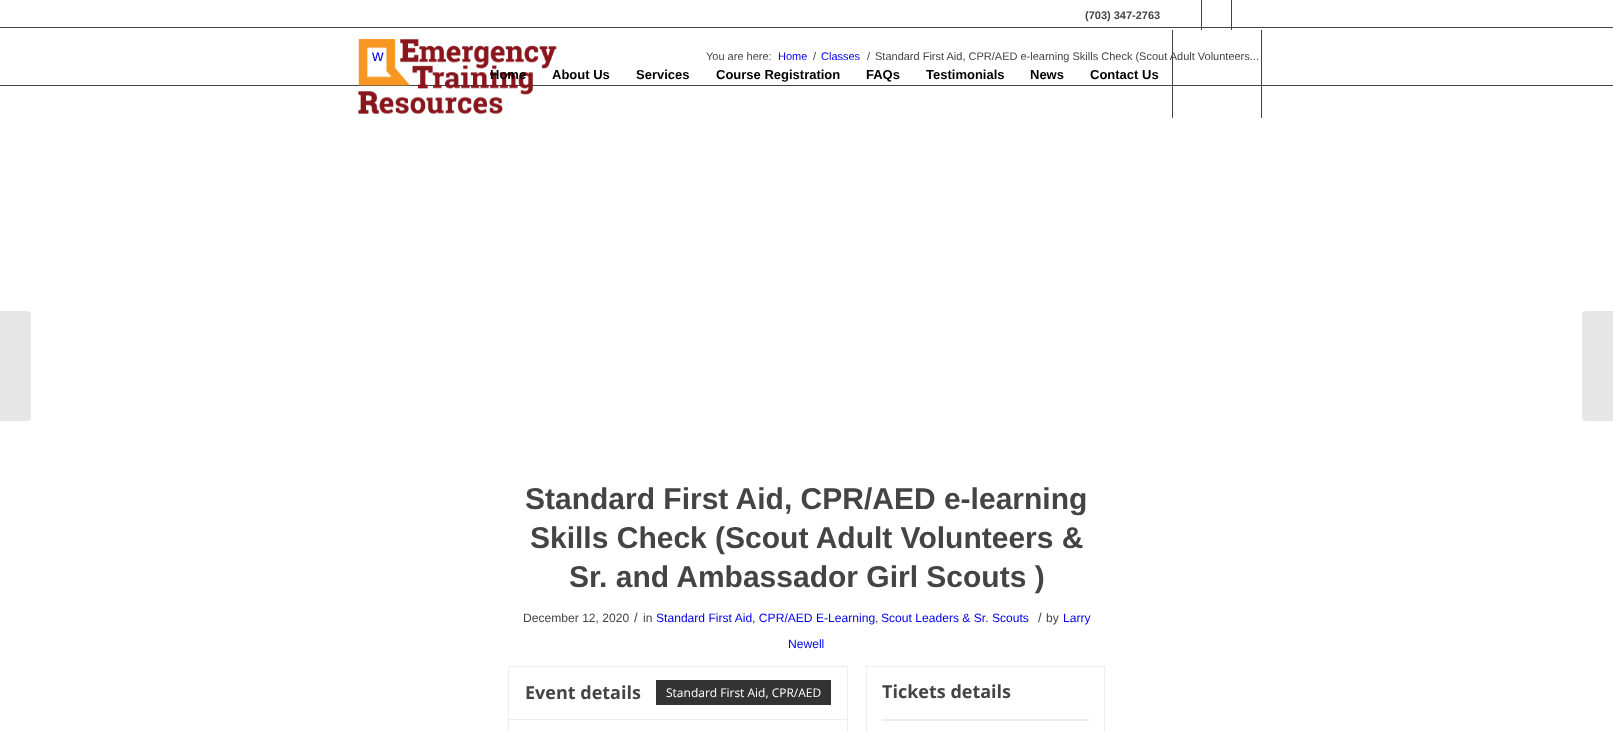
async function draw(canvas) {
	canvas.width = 1613;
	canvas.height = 732;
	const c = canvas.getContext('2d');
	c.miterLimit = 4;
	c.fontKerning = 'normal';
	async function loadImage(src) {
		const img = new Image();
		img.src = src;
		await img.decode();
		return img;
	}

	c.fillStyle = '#fff';
	c.fillRect(0, 0, 1613, 732);
	c.font = 'bold 11px Liberation Sans';
	c.fillStyle = '#444';
	c.fillText('(703) 347-2763', 1085, 19);
	for (const [x, y, w, h, color] of [
		[0, 27, 1613, 1, '#444'],
		[1201, 0, 1, 30, '#444'],
		[1231, 0, 1, 30, '#444'],
	]) {
		c.fillStyle = color;
		c.fillRect(x, y, w, h);
	}
	c.font = '16px Liberation Sans';
	c.fillStyle = '#00e';
	c.fillText('w', 372, 61);
	c.fillStyle = '#444';
	c.fillRect(0, 85, 1613, 1);
	c.drawImage(await loadImage('img1.png'), 358, 39, 199, 75);
	c.font = 'bold 13px Liberation Sans';
	c.fillStyle = '#000';
	for (const [text, x, y] of [
		['Home', 490, 79],
		['About Us', 552, 79],
		['Services', 636, 79],
		['Course Registration', 716, 79],
		['FAQs', 866, 79],
		['Testimonials', 926, 79],
		['News', 1030, 79],
		['Contact Us', 1090, 79],
	]) {
		c.fillText(text, x, y);
	}
	c.fillStyle = '#444';
	c.fillRect(1261, 30, 1, 88);
	c.fillRect(1172, 30, 1, 88);
	c.fillStyle = '#e6e6e6';
	c.beginPath();
	c.roundRect(0, 311, 31, 110, [0, 4, 4, 0]);
	c.fill();
	c.font = '11px Liberation Sans';
	c.fillStyle = '#444';
	c.fillText('You are here:', 706, 60);
	c.fillStyle = '#00e';
	c.fillText('Home', 778, 60);
	c.fillStyle = '#444';
	c.fillText('/', 813, 60);
	c.fillStyle = '#00e';
	c.fillText('Classes', 821, 60);
	c.fillStyle = '#444';
	c.fillText('/', 867, 60);
	c.fillText('Standard First Aid, CPR/AED e-learning Skills Check (Scout Adult Volunteers...', 875, 60);
	c.font = 'bold 30px Liberation Sans';
	for (const [text, x, y] of [
		['Standard First Aid, CPR/AED e-learning', 525, 509],
		['Skills Check (Scout Adult Volunteers &', 530, 548],
		['Sr. and Ambassador Girl Scouts )', 569, 587],
	]) {
		c.fillText(text, x, y);
	}
	c.font = '12.1px Liberation Sans';
	c.fillText('December 12, 2020', 523, 622);
	c.font = '13px Liberation Sans';
	c.fillText('/', 634, 622);
	c.font = '12.1px Liberation Sans';
	c.fillText('in', 643, 622);
	c.fillStyle = '#00e';
	c.fillText('Standard First Aid, CPR/AED E-Learning', 656, 622);
	c.fillStyle = '#444';
	c.fillText(',', 875, 622);
	c.fillStyle = '#00e';
	c.fillText('Scout Leaders & Sr. Scouts', 881, 622);
	c.font = '13px Liberation Sans';
	c.fillStyle = '#444';
	c.fillText('/', 1038, 622);
	c.font = '12.1px Liberation Sans';
	c.fillText('by', 1046, 622);
	c.fillStyle = '#00e';
	c.fillText('Larry', 1063, 622);
	c.fillText('Newell', 788, 648);
	c.strokeStyle = '#eee';
	c.strokeRect(508.5, 666.5, 339, 53);
	c.font = 'bold 18px Open Sans';
	c.fillStyle = '#444';
	c.fillText('Event details', 525, 699);
	c.fillStyle = '#333';
	c.fillRect(656, 680, 175, 25);
	c.font = '12px Open Sans';
	c.fillStyle = '#fff';
	c.fillText('Standard First Aid, CPR/AED', 666, 697);
	c.fillStyle = '#eee';
	c.fillRect(847, 720, 1, 12);
	c.fillRect(508, 720, 1, 12);
	c.strokeRect(866.5, 666.5, 238, 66);
	c.fillRect(882, 719, 207, 2);
	c.font = 'bold 18px Open Sans';
	c.fillStyle = '#444';
	c.fillText('Tickets details', 882, 698);
	c.fillStyle = '#e6e6e6';
	c.beginPath();
	c.roundRect(1582, 311, 31, 110, [4, 0, 0, 4]);
	c.fill();
}

draw(document.querySelector('canvas'));
